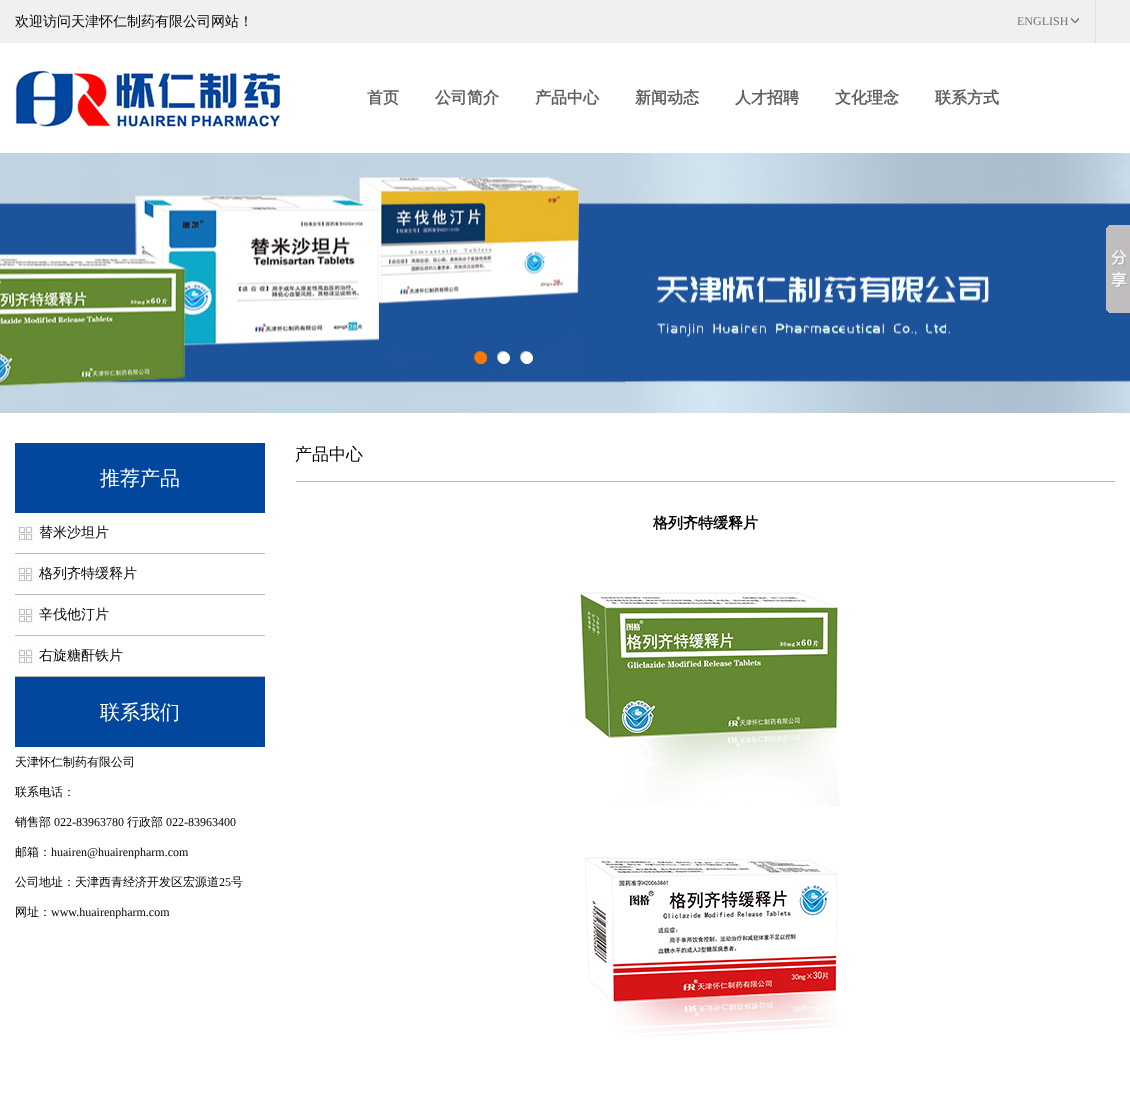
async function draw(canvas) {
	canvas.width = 1130;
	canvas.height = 1107;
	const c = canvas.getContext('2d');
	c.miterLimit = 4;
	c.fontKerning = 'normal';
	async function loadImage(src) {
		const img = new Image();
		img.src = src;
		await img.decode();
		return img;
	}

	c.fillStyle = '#fff';
	c.fillRect(0, 0, 1130, 1107);
	c.fillStyle = '#f0f0f0';
	c.fillRect(0, 0, 1130, 43);
	c.font = '500 14px WenQuanYi Zen Hei';
	c.fillStyle = '#000';
	c.fillText('欢迎访问天津怀仁制药有限公司网站！', 15, 26);
	c.fillStyle = '#dedede';
	c.fillRect(1095, 0, 1, 43);
	c.font = '12px Liberation Serif';
	c.fillStyle = '#737373';
	c.fillText('ENGLISH', 1017, 25);
	c.drawImage(await loadImage('img1.png'), 1068, 11, 16, 16);
	c.drawImage(await loadImage('img2.png'), 15, 67, 267, 61);
	c.font = 'bold 16px WenQuanYi Zen Hei';
	c.fillStyle = '#606060';
	for (const [text, x, y] of [
		['首页', 367, 103],
		['公司简介', 435, 103],
		['产品中心', 535, 103],
		['新闻动态', 635, 103],
		['人才招聘', 735, 103],
		['文化理念', 835, 103],
		['联系方式', 935, 103],
	]) {
		c.fillText(text, x, y);
	}
	c.drawImage(await loadImage('img3.png'), 0, 153, 1130, 260);
	c.drawImage(await loadImage('img4.png'), 474, 351, 13, 13);
	c.drawImage(await loadImage('img5.png'), 497, 351, 13, 13);
	c.drawImage(await loadImage('img6.png'), 520, 351, 13, 13);
	c.drawImage(await loadImage('img7.png'), 1106, 225, 24, 88);
	c.fillStyle = '#01479d';
	c.fillRect(15, 443, 250, 70);
	c.font = '500 20px WenQuanYi Zen Hei';
	c.fillStyle = '#fff';
	c.fillText('推荐产品', 100, 485);
	c.fillStyle = '#bababa';
	c.fillRect(15, 553, 250, 1);
	c.drawImage(await loadImage('img8.png'), 15, 521, 24, 23);
	c.font = '500 14px WenQuanYi Zen Hei';
	c.fillStyle = '#000';
	c.fillText('替米沙坦片', 39, 537);
	c.fillStyle = '#bababa';
	c.fillRect(15, 594, 250, 1);
	c.drawImage(await loadImage('img8.png'), 15, 562, 24, 23);
	c.fillStyle = '#000';
	c.fillText('格列齐特缓释片', 39, 578);
	c.fillStyle = '#bababa';
	c.fillRect(15, 635, 250, 1);
	c.drawImage(await loadImage('img8.png'), 15, 603, 24, 23);
	c.fillStyle = '#000';
	c.fillText('辛伐他汀片', 39, 619);
	c.fillStyle = '#bababa';
	c.fillRect(15, 676, 250, 1);
	c.drawImage(await loadImage('img8.png'), 15, 644, 24, 23);
	c.fillStyle = '#000';
	c.fillText('右旋糖酐铁片', 39, 660);
	c.fillStyle = '#01479d';
	c.fillRect(15, 677, 250, 70);
	c.font = '500 20px WenQuanYi Zen Hei';
	c.fillStyle = '#fff';
	c.fillText('联系我们', 100, 719);
	c.font = '500 12px WenQuanYi Zen Hei';
	c.fillStyle = '#000';
	for (const [text, x, y] of [
		['天津怀仁制药有限公司', 15, 766],
		['联系电话：', 15, 796],
		['销售部', 15, 826],
	]) {
		c.fillText(text, x, y);
	}
	c.font = '12px Liberation Serif';
	c.fillText('022-83963780', 54, 826);
	c.font = '500 12px WenQuanYi Zen Hei';
	c.fillText('行政部', 127, 826);
	c.font = '12px Liberation Serif';
	c.fillText('022-83963400', 166, 826);
	c.font = '500 12px WenQuanYi Zen Hei';
	c.fillText('邮箱：', 15, 856);
	c.font = '12px Liberation Serif';
	c.fillText('huairen@huairenpharm.com', 51, 856);
	c.font = '500 12px WenQuanYi Zen Hei';
	c.fillText('公司地址：天津西青经济开发区宏源道', 15, 886);
	c.font = '12px Liberation Serif';
	c.fillText('25', 219, 886);
	c.font = '500 12px WenQuanYi Zen Hei';
	c.fillText('号', 231, 886);
	c.fillText('网址：', 15, 916);
	c.font = '12px Liberation Serif';
	c.fillText('www.huairenpharm.com', 51, 916);
	c.fillStyle = '#b9b9b9';
	c.fillRect(296, 481, 819, 1);
	c.font = '500 17px WenQuanYi Zen Hei';
	c.fillStyle = '#000';
	c.fillText('产品中心', 295, 460);
	c.font = 'bold 15px WenQuanYi Zen Hei';
	c.fillText('格列齐特缓释片', 653, 528);
	c.drawImage(await loadImage('img9.png'), 580, 592, 260, 215);
	c.drawImage(await loadImage('img10.png'), 584, 857, 254, 180);
}

draw(document.querySelector('canvas'));
